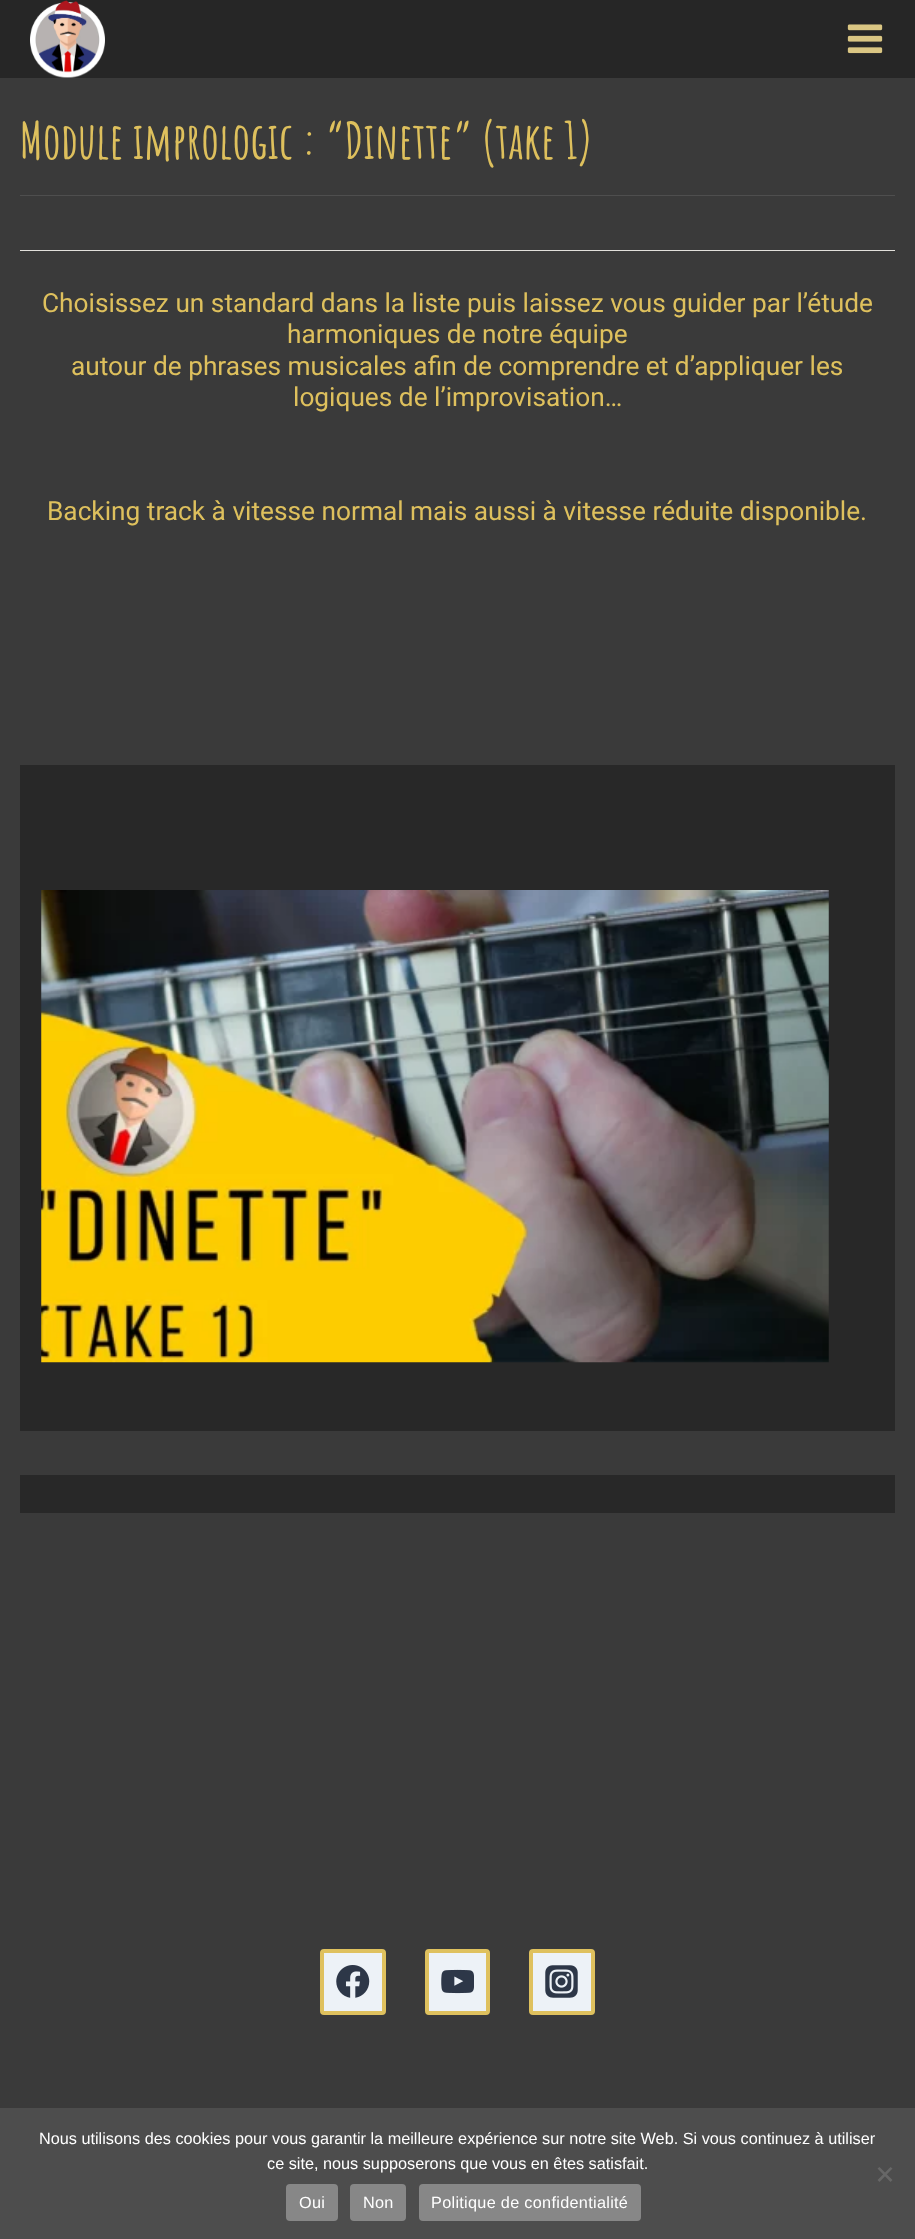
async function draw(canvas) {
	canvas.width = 915;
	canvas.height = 2239;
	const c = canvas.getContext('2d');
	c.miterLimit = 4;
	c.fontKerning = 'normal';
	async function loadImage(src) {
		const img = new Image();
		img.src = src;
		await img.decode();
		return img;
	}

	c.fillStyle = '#3a3a3a';
	c.fillRect(0, 0, 915, 2239);
	c.fillStyle = '#262626';
	c.fillRect(0, 0, 915, 78);
	c.drawImage(await loadImage('img1.png'), 30, 0, 75, 78);
	c.drawImage(await loadImage('img2.png'), 847, 24, 36, 30);
	c.fillStyle = '#4e4e4e';
	c.fillRect(20, 195, 875, 1);
	c.font = 'bold 50px Amatic SC';
	c.fillStyle = '#dec05d';
	c.fillText('Module imprologic : “Dinette” (take 1)', 20, 159);
	c.fillStyle = '#e2e0db';
	c.fillRect(20, 250, 875, 1);
	c.font = '26.25px Roboto';
	c.fillStyle = '#dec05d';
	for (const [text, x, y] of [
		['Choisissez un standard dans la liste puis laissez vous guider par l’étude', 42, 312],
		['harmoniques de notre équipe', 287, 343],
		['autour de phrases musicales afin de comprendre et d’appliquer les', 71, 375],
		['logiques de l’improvisation…', 293, 406],
		['Backing track à vitesse normal mais aussi à vitesse réduite disponible.', 47, 520],
	]) {
		c.fillText(text, x, y);
	}
	c.fillStyle = '#282828';
	c.fillRect(20, 765, 875, 666);
	c.drawImage(await loadImage('img3.png'), 41, 890, 788, 473);
	c.fillRect(20, 1475, 875, 38);
	c.fillStyle = '#edf2f7';
	c.beginPath();
	c.roundRect(322, 1951, 62, 62, 2);
	c.fill();
	c.strokeStyle = '#dfc15e';
	c.lineWidth = 4;
	c.stroke();
	c.drawImage(await loadImage('img4.png'), 336, 1965, 34, 33);
	c.beginPath();
	c.roundRect(427, 1951, 61, 62, 2);
	c.fill();
	c.stroke();
	c.drawImage(await loadImage('img5.png'), 441, 1969, 33, 25);
	c.beginPath();
	c.roundRect(531, 1951, 62, 62, 2);
	c.fill();
	c.stroke();
	c.drawImage(await loadImage('img6.png'), 545, 1965, 33, 33);
	c.fillStyle = '#4f4f4fe8';
	c.fillRect(0, 2108, 915, 131);
	c.font = '16.25px Liberation Sans';
	c.fillStyle = '#fff';
	c.fillText('Nous utilisons des cookies pour vous garantir la meilleure expérience sur notre site Web. Si vous continuez à utiliser', 39, 2144);
	c.fillText('ce site, nous supposerons que vous en êtes satisfait.', 267, 2169);
	c.fillStyle = '#676767';
	c.beginPath();
	c.moveTo(890.5, 2167);
	c.lineTo(892.5, 2168.5);
	c.lineTo(879.5, 2182);
	c.lineTo(877.5, 2180);
	c.closePath();
	c.fill();
	c.beginPath();
	c.moveTo(877.5, 2168.5);
	c.lineTo(879.5, 2167);
	c.lineTo(892.5, 2180);
	c.lineTo(890.5, 2182);
	c.closePath();
	c.fill();
	c.fillStyle = '#878787';
	c.beginPath();
	c.roundRect(286, 2184, 52, 37, 4);
	c.fill();
	c.letterSpacing = '0.3px';
	c.fillStyle = '#fff';
	c.fillText('Oui', 299, 2208);
	c.fillStyle = '#878787';
	c.beginPath();
	c.roundRect(350, 2184, 56, 37, 4);
	c.fill();
	c.fillStyle = '#fff';
	c.fillText('Non', 363, 2208);
	c.fillStyle = '#878787';
	c.beginPath();
	c.roundRect(419, 2184, 222, 37, 4);
	c.fill();
	c.fillStyle = '#fff';
	c.fillText('Politique de confidentialité', 431, 2208);
}

draw(document.querySelector('canvas'));
